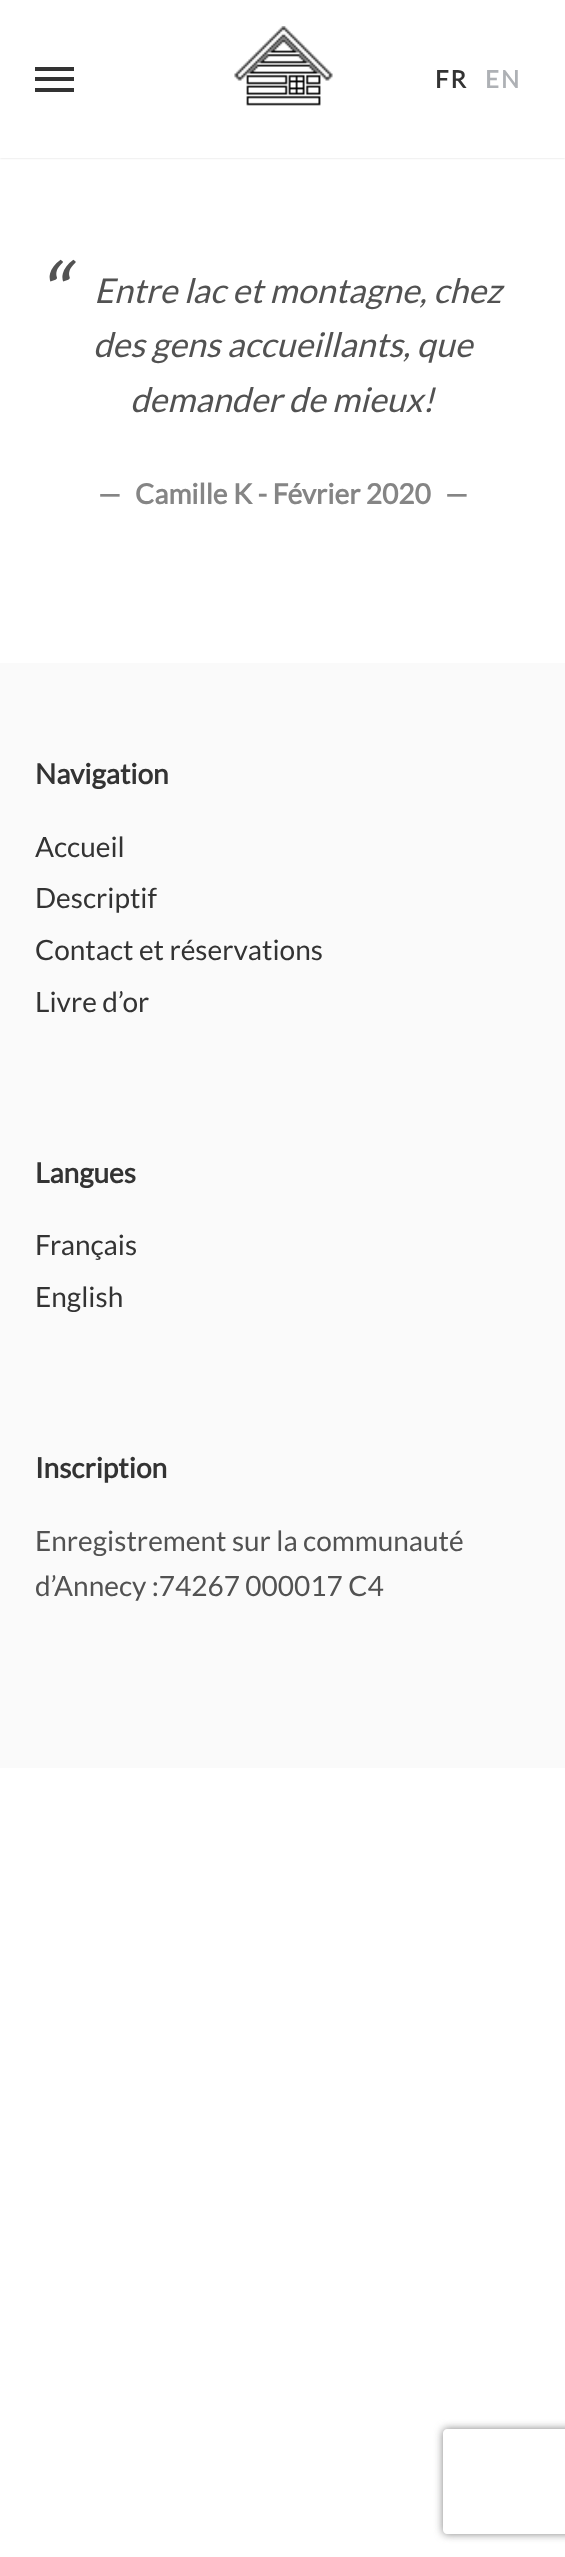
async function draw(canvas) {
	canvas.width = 565;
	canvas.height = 2557;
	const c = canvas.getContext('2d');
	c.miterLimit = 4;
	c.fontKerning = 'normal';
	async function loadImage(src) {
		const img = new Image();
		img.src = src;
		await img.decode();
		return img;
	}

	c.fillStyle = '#fff';
	c.fillRect(0, 0, 565, 2557);
	c.fillStyle = '#00000026';
	c.filter = 'blur(1px)';
	c.beginPath();
	c.rect(0, 0, 565, 158);
	c.fill();
	c.filter = 'none';
	for (const [x, y, w, h, color] of [
		[0, 0, 565, 158, '#fff'],
		[35, 77, 39, 4, '#333'],
		[35, 67, 39, 4, '#333'],
		[35, 88, 39, 4, '#333'],
	]) {
		c.fillStyle = color;
		c.fillRect(x, y, w, h);
	}
	c.drawImage(await loadImage('img1.png'), 234, 26, 99, 80);
	c.letterSpacing = '2px';
	c.font = 'bold 24px Lato';
	c.fillText('FR', 435, 88);
	c.fillStyle = '#aeb1b5';
	c.fillText('EN', 485, 88);
	c.letterSpacing = '0px';
	c.font = 'italic 84px Lato';
	c.fillStyle = '#525252';
	c.fillText('“', 35, 324);
	c.font = 'italic 34.1px Lato';
	for (const [text, x, y] of [
		['Entre lac et montagne, chez', 94, 303],
		['des gens accueillants, que', 93, 357],
		['demander de mieux!', 130, 412],
	]) {
		c.fillText(text, x, y);
	}
	c.font = 'bold 28px Lato';
	c.fillStyle = '#858585';
	for (const [text, x, y] of [
		['—', 98, 504],
		['Camille K - Février 2020', 135, 504],
		['—', 445, 504],
	]) {
		c.fillText(text, x, y);
	}
	c.fillStyle = '#fafafa';
	c.fillRect(0, 663, 565, 1105);
	c.fillStyle = '#333';
	c.fillText('Navigation', 35, 784);
	c.font = '28px Lato';
	for (const [text, x, y] of [
		['Accueil', 35, 857],
		['Descriptif', 35, 908],
		['Contact et réservations', 35, 960],
		['Livre d’or', 35, 1012],
	]) {
		c.fillText(text, x, y);
	}
	c.font = 'bold 28px Lato';
	c.fillText('Langues', 35, 1183);
	c.font = '28px Lato';
	c.fillText('Français', 35, 1255);
	c.fillText('English', 35, 1307);
	c.font = 'bold 28px Lato';
	c.fillText('Inscription', 35, 1478);
	c.font = '28px Lato';
	c.fillStyle = '#525252';
	c.fillText('Enregistrement sur la communauté', 35, 1551);
	c.fillText('d’Annecy :74267 000017 C4', 35, 1596);
	c.save();
	c.beginPath();
	c.moveTo(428, 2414);
	c.lineTo(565, 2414);
	c.lineTo(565, 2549);
	c.lineTo(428, 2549);
	c.closePath();
	c.moveTo(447, 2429);
	c.lineTo(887, 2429);
	c.bezierCurveTo(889, 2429, 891, 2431, 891, 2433);
	c.lineTo(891, 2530);
	c.bezierCurveTo(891, 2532, 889, 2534, 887, 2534);
	c.lineTo(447, 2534);
	c.bezierCurveTo(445, 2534, 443, 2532, 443, 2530);
	c.lineTo(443, 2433);
	c.bezierCurveTo(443, 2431, 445, 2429, 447, 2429);
	c.closePath();
	c.clip('evenodd');
	c.fillStyle = '#808080';
	c.filter = 'blur(4.5px)';
	c.beginPath();
	c.roundRect(443, 2429, 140, 105, 4);
	c.fill();
	c.filter = 'none';
	c.restore();
}

draw(document.querySelector('canvas'));
